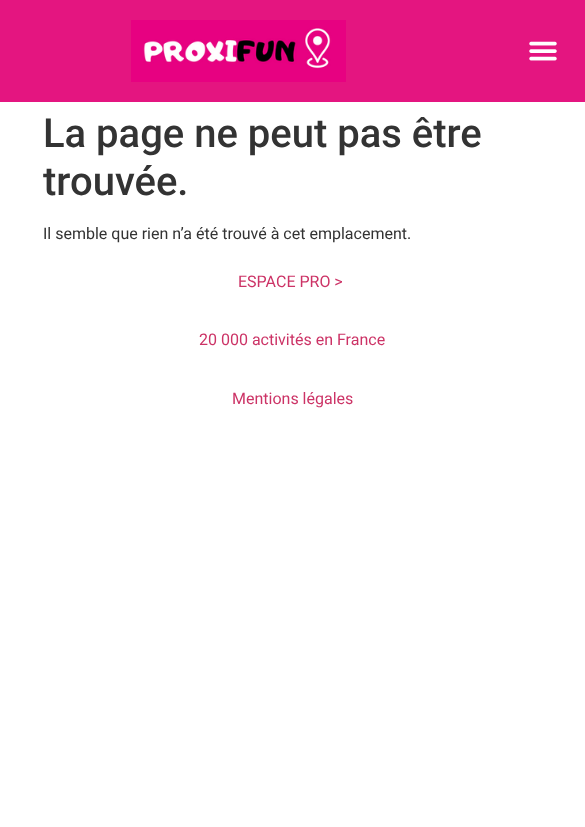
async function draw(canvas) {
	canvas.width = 585;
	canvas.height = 827;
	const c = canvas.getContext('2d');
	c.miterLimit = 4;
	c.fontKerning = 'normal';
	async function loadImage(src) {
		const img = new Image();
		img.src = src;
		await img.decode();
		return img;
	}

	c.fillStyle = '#fff';
	c.fillRect(0, 0, 585, 827);
	c.fillStyle = '#e41580';
	c.fillRect(0, 0, 585, 102);
	c.drawImage(await loadImage('img1.png'), 131, 20, 215, 62);
	c.drawImage(await loadImage('img2.png'), 529, 41, 28, 20);
	c.font = '500 40px Roboto';
	c.fillStyle = '#333';
	c.fillText('La page ne peut pas être', 43, 147);
	c.fillText('trouvée.', 43, 195);
	c.font = '16px Roboto';
	c.fillText('Il semble que rien n’a été trouvé à cet emplacement.', 43, 239);
	c.fillStyle = '#c36';
	for (const [text, x, y] of [
		['ESPACE PRO >', 238, 287],
		['20 000 activités en France', 199, 345],
		['Mentions légales', 232, 404],
	]) {
		c.fillText(text, x, y);
	}
}

draw(document.querySelector('canvas'));
